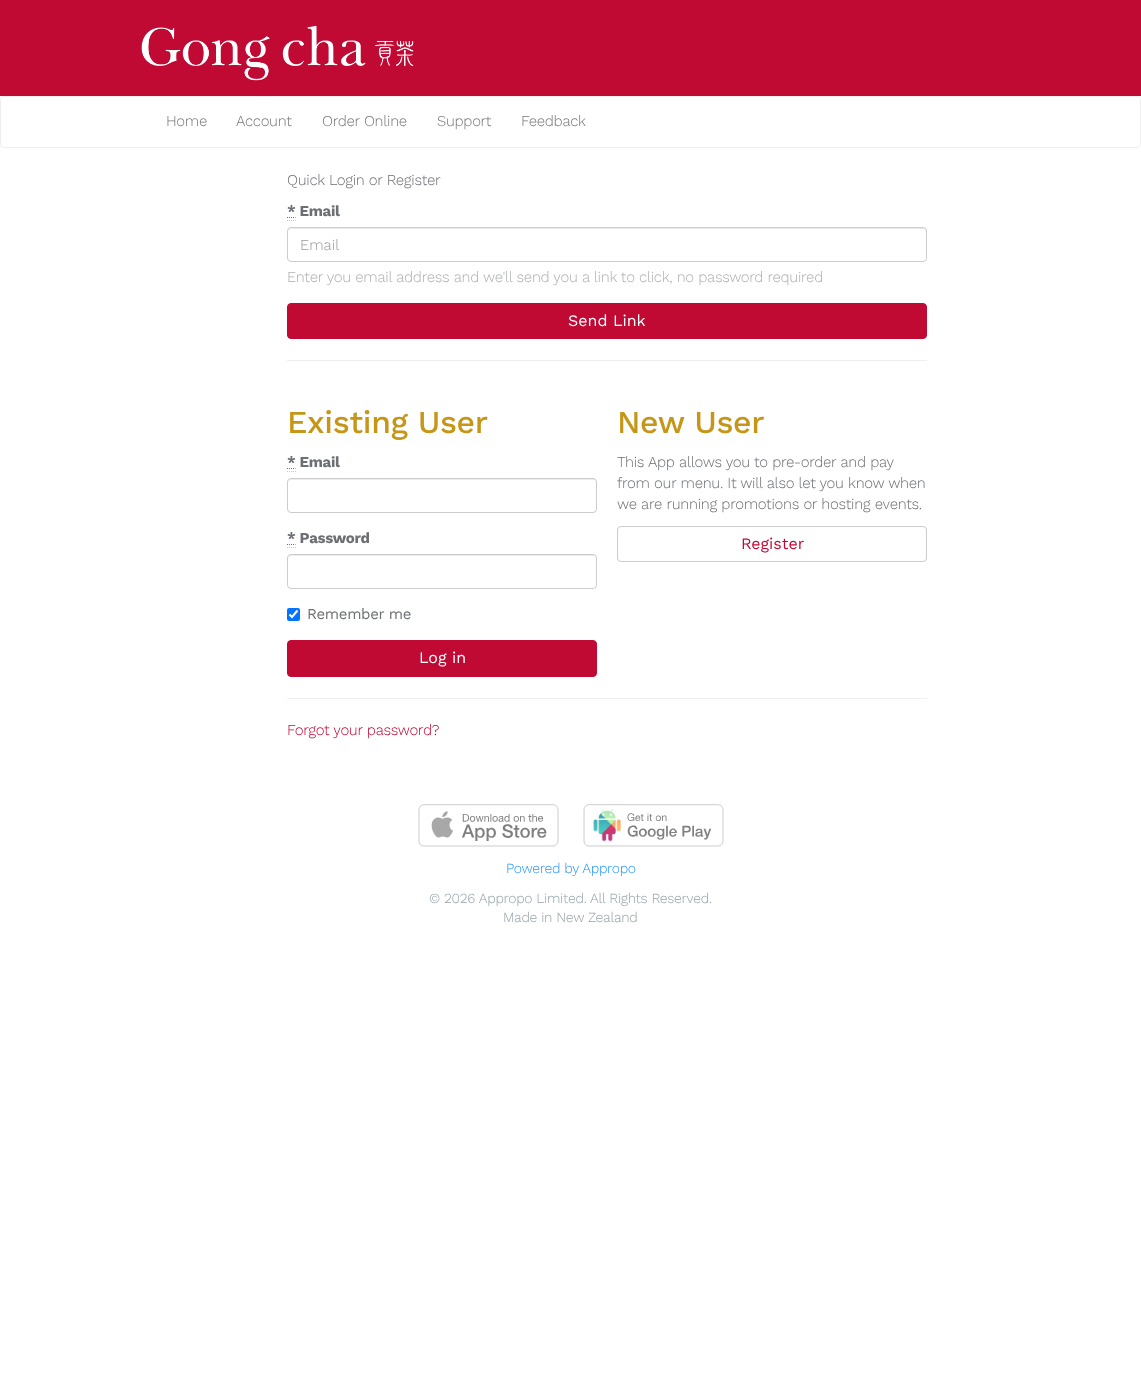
async function draw(canvas) {
	canvas.width = 1141;
	canvas.height = 1384;
	const c = canvas.getContext('2d');
	c.miterLimit = 4;
	c.fontKerning = 'normal';
	async function loadImage(src) {
		const img = new Image();
		img.src = src;
		await img.decode();
		return img;
	}

	c.fillStyle = '#fff';
	c.fillRect(0, 0, 1141, 1384);
	c.fillStyle = '#c00933';
	c.fillRect(0, 0, 1141, 96);
	c.drawImage(await loadImage('img1.png'), 141, 25, 273, 56);
	c.beginPath();
	c.roundRect(0.5, 96.5, 1140, 51, 3.5);
	c.strokeStyle = '#eee';
	c.stroke();
	c.letterSpacing = '-0.3px';
	c.font = '300 15px Work Sans';
	c.fillStyle = '#777';
	for (const [text, x, y] of [
		['Home', 166, 126],
		['Account', 236, 126],
		['Order Online', 322, 126],
		['Support', 437, 126],
		['Feedback', 521, 126],
	]) {
		c.fillText(text, x, y);
	}
	c.fillStyle = '#6c6f73';
	c.fillText('Quick Login or Register', 287, 185);
	c.font = 'bold 15px Work Sans';
	c.fillText('* Email', 287, 216);
	c.beginPath();
	c.moveTo(287, 220.5);
	c.lineTo(296, 220.5);
	c.strokeStyle = '#bec8ce';
	c.setLineDash([1, 1]);
	c.stroke();
	c.beginPath();
	c.moveTo(287, 217.5);
	c.lineTo(295.5, 217.5);
	c.strokeStyle = '#6c6f73';
	c.stroke();
	c.fillStyle = '#ececec';
	c.beginPath();
	c.moveTo(291, 229);
	c.lineTo(923, 229);
	c.bezierCurveTo(925, 229, 926, 230, 926, 232);
	c.lineTo(926, 231);
	c.bezierCurveTo(926, 229, 925, 228, 923, 228);
	c.lineTo(291, 228);
	c.bezierCurveTo(289, 228, 288, 229, 288, 231);
	c.lineTo(288, 232);
	c.bezierCurveTo(288, 230, 289, 229, 291, 229);
	c.closePath();
	c.fill();
	c.beginPath();
	c.roundRect(287.5, 227.5, 639, 34, 3.5);
	c.strokeStyle = '#ccc';
	c.setLineDash([]);
	c.stroke();
	c.letterSpacing = '0px';
	c.font = '300 15px Work Sans';
	c.fillStyle = '#999';
	c.fillText('Email', 300, 250);
	c.letterSpacing = '-0.3px';
	c.fillStyle = '#adafb2';
	c.fillText('Enter you email address and we\'ll send you a link to click, no password required', 287, 282);
	c.fillStyle = '#c00933';
	c.beginPath();
	c.roundRect(287.5, 303.5, 639, 35, 3.5);
	c.fill();
	c.strokeStyle = '#c00933';
	c.stroke();
	c.letterSpacing = '0px';
	c.font = '16px Work Sans';
	c.fillStyle = '#fff';
	c.fillText('Send Link', 568, 326);
	c.fillStyle = '#eee';
	c.fillRect(287, 360, 640, 1);
	c.letterSpacing = '-0.3px';
	c.font = '500 32px Work Sans';
	c.fillStyle = '#c59617';
	c.fillText('Existing User', 287, 433);
	c.font = 'bold 15px Work Sans';
	c.fillStyle = '#6c6f73';
	c.fillText('* Email', 287, 467);
	c.beginPath();
	c.moveTo(287, 471.5);
	c.lineTo(296, 471.5);
	c.strokeStyle = '#bec8ce';
	c.setLineDash([1, 1]);
	c.stroke();
	c.beginPath();
	c.moveTo(287, 468.5);
	c.lineTo(295.5, 468.5);
	c.strokeStyle = '#6c6f73';
	c.stroke();
	c.fillStyle = '#ececec';
	c.beginPath();
	c.moveTo(291, 480);
	c.lineTo(593, 480);
	c.bezierCurveTo(595, 480, 596, 481, 596, 483);
	c.lineTo(595, 480);
	c.lineTo(594, 479);
	c.lineTo(291, 479);
	c.bezierCurveTo(289, 479, 288, 481, 288, 483);
	c.bezierCurveTo(288, 481, 289, 480, 291, 480);
	c.closePath();
	c.fill();
	c.beginPath();
	c.roundRect(287.5, 478.5, 309, 34, 3.5);
	c.strokeStyle = '#ccc';
	c.setLineDash([]);
	c.stroke();
	c.fillStyle = '#6c6f73';
	c.fillText('* Password', 287, 543);
	c.beginPath();
	c.moveTo(287, 547.5);
	c.lineTo(296, 547.5);
	c.strokeStyle = '#bec8ce';
	c.setLineDash([1, 1]);
	c.stroke();
	c.beginPath();
	c.moveTo(287, 544.5);
	c.lineTo(295.5, 544.5);
	c.strokeStyle = '#6c6f73';
	c.stroke();
	c.fillStyle = '#ececec';
	c.beginPath();
	c.moveTo(291, 556);
	c.lineTo(593, 556);
	c.bezierCurveTo(595, 556, 596, 557, 596, 559);
	c.lineTo(595, 556);
	c.lineTo(594, 555);
	c.lineTo(291, 555);
	c.bezierCurveTo(289, 555, 288, 557, 288, 559);
	c.bezierCurveTo(288, 557, 289, 556, 291, 556);
	c.closePath();
	c.fill();
	c.beginPath();
	c.roundRect(287.5, 554.5, 309, 34, 3.5);
	c.strokeStyle = '#ccc';
	c.setLineDash([]);
	c.stroke();
	c.fillStyle = '#0075ff';
	c.beginPath();
	c.roundRect(287, 608, 13, 13, 2);
	c.fill();
	c.beginPath();
	c.moveTo(289.5, 614.5);
	c.lineTo(292, 617);
	c.lineTo(297.5, 610.5);
	c.strokeStyle = '#fff';
	c.lineWidth = 2.1;
	c.stroke();
	c.font = '15px Work Sans';
	c.fillStyle = '#6c6f73';
	c.fillText('Remember me', 307, 619);
	c.fillStyle = '#c00933';
	c.beginPath();
	c.roundRect(287.5, 640.5, 309, 36, 3.5);
	c.fill();
	c.strokeStyle = '#c00933';
	c.lineWidth = 1;
	c.stroke();
	c.letterSpacing = '0px';
	c.font = '16px Work Sans';
	c.fillStyle = '#fff';
	c.fillText('Log in', 419, 663);
	c.letterSpacing = '-0.3px';
	c.font = '500 32px Work Sans';
	c.fillStyle = '#c59617';
	c.fillText('New User', 617, 433);
	c.font = '300 15px Work Sans';
	c.fillStyle = '#6c6f73';
	for (const [text, x, y] of [
		['This App allows you to pre-order and pay', 617, 467],
		['from our menu. It will also let you know when', 617, 488],
		['we are running promotions or hosting events.', 617, 509],
	]) {
		c.fillText(text, x, y);
	}
	c.beginPath();
	c.roundRect(617.5, 526.5, 309, 35, 3.5);
	c.strokeStyle = '#ccc';
	c.stroke();
	c.letterSpacing = '0px';
	c.font = '16px Work Sans';
	c.fillStyle = '#c00933';
	c.fillText('Register', 741, 549);
	c.fillStyle = '#eee';
	c.fillRect(287, 698, 640, 1);
	c.letterSpacing = '-0.3px';
	c.font = '300 15px Work Sans';
	c.fillStyle = '#c00933';
	c.fillText('Forgot your password?', 287, 735);
	c.drawImage(await loadImage('img2.png'), 418, 804, 141, 43);
	c.drawImage(await loadImage('img3.png'), 583, 804, 141, 43);
	c.font = '300 14px Work Sans';
	c.fillStyle = '#2595ff';
	c.fillText('Powered by Appropo', 506, 873);
	c.fillStyle = '#94a3a8';
	c.fillText('© 2026 Appropo Limited. All Rights Reserved.', 429, 903);
	c.fillText('Made in New Zealand', 503, 922);
}

draw(document.querySelector('canvas'));
